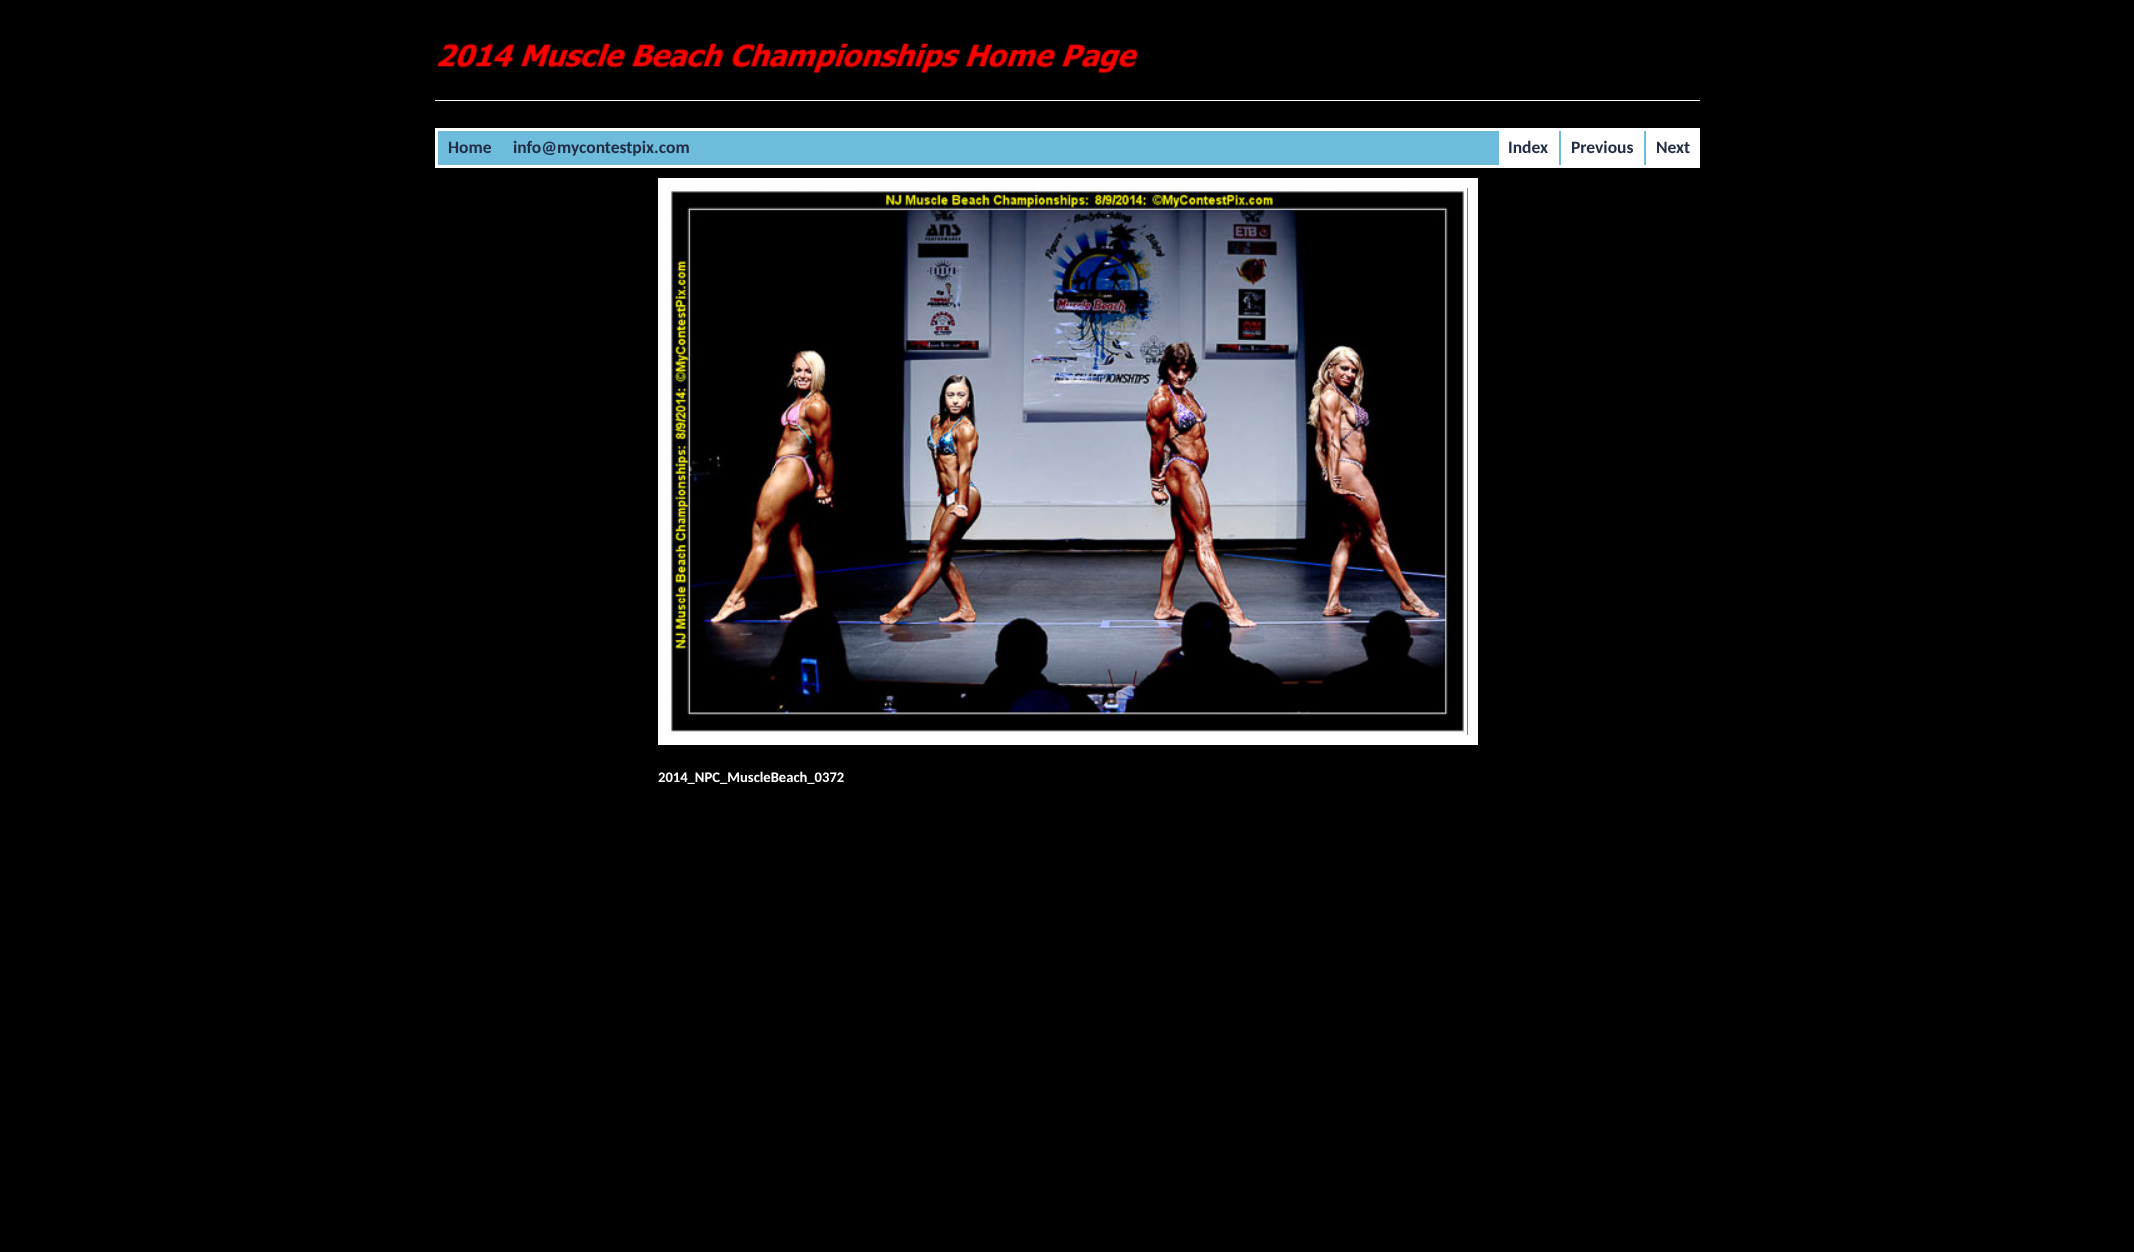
async function draw(canvas) {
	canvas.width = 2134;
	canvas.height = 1252;
	const c = canvas.getContext('2d');
	c.miterLimit = 4;
	c.fontKerning = 'normal';
	async function loadImage(src) {
		const img = new Image();
		img.src = src;
		await img.decode();
		return img;
	}

	c.fillStyle = '#000';
	c.fillRect(0, 0, 2134, 1252);
	c.drawImage(await loadImage('img1.png'), 437, 43, 701, 30);
	c.fillStyle = '#fff';
	c.fillRect(435, 100, 1265, 1);
	c.fillStyle = '#6dbcdb';
	c.fillRect(438, 131, 1208, 34);
	c.strokeStyle = '#fff';
	c.lineWidth = 3;
	c.strokeRect(436.5, 129.5, 1262, 37);
	c.font = 'bold 17.5px Carlito';
	c.fillStyle = '#202d44';
	c.fillText('Home', 448, 153);
	c.fillText('info@mycontestpix.com', 513, 153);
	c.fillStyle = '#fff';
	c.fillRect(1499, 131, 60, 34);
	c.fillStyle = '#202d44';
	c.fillText('Index', 1508, 153);
	c.fillStyle = '#fff';
	c.fillRect(1561, 131, 83, 34);
	c.fillStyle = '#202d44';
	c.fillText('Previous', 1571, 153);
	c.fillStyle = '#fff';
	c.fillRect(1646, 131, 51, 34);
	c.fillStyle = '#202d44';
	c.fillText('Next', 1656, 153);
	c.lineWidth = 10;
	c.strokeRect(663, 183, 810, 557);
	c.drawImage(await loadImage('img2.png'), 667, 187, 801, 548);
	c.font = 'bold 14.6px Carlito';
	c.fillStyle = '#fff';
	c.fillText('2014_NPC_MuscleBeach_0372', 658, 782);
}

draw(document.querySelector('canvas'));
